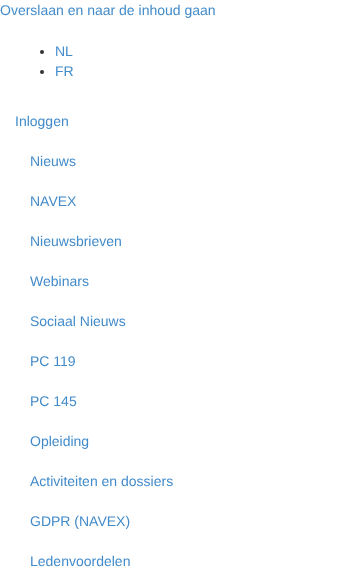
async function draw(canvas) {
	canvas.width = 360;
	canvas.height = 574;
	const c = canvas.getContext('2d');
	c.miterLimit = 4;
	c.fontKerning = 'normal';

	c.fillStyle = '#fff';
	c.fillRect(0, 0, 360, 574);
	c.font = '14px Liberation Sans';
	c.fillStyle = '#428bca';
	c.fillText('Overslaan en naar de inhoud gaan', 0, 15);
	c.fillStyle = '#333';
	c.beginPath();
	c.arc(42, 52, 2, 0, 2 * Math.PI);
	c.fill();
	c.fillStyle = '#428bca';
	c.fillText('NL', 55, 56);
	c.fillStyle = '#333';
	c.beginPath();
	c.arc(42, 72, 2, 0, 2 * Math.PI);
	c.fill();
	c.fillStyle = '#428bca';
	for (const [text, x, y] of [
		['FR', 55, 76],
		['Inloggen', 15, 126],
		['Nieuws', 30, 166],
		['NAVEX', 30, 206],
		['Nieuwsbrieven', 30, 246],
		['Webinars', 30, 286],
		['Sociaal Nieuws', 30, 326],
		['PC 119', 30, 366],
		['PC 145', 30, 406],
		['Opleiding', 30, 446],
		['Activiteiten en dossiers', 30, 486],
		['GDPR (NAVEX)', 30, 526],
		['Ledenvoordelen', 30, 566],
	]) {
		c.fillText(text, x, y);
	}
}

draw(document.querySelector('canvas'));
